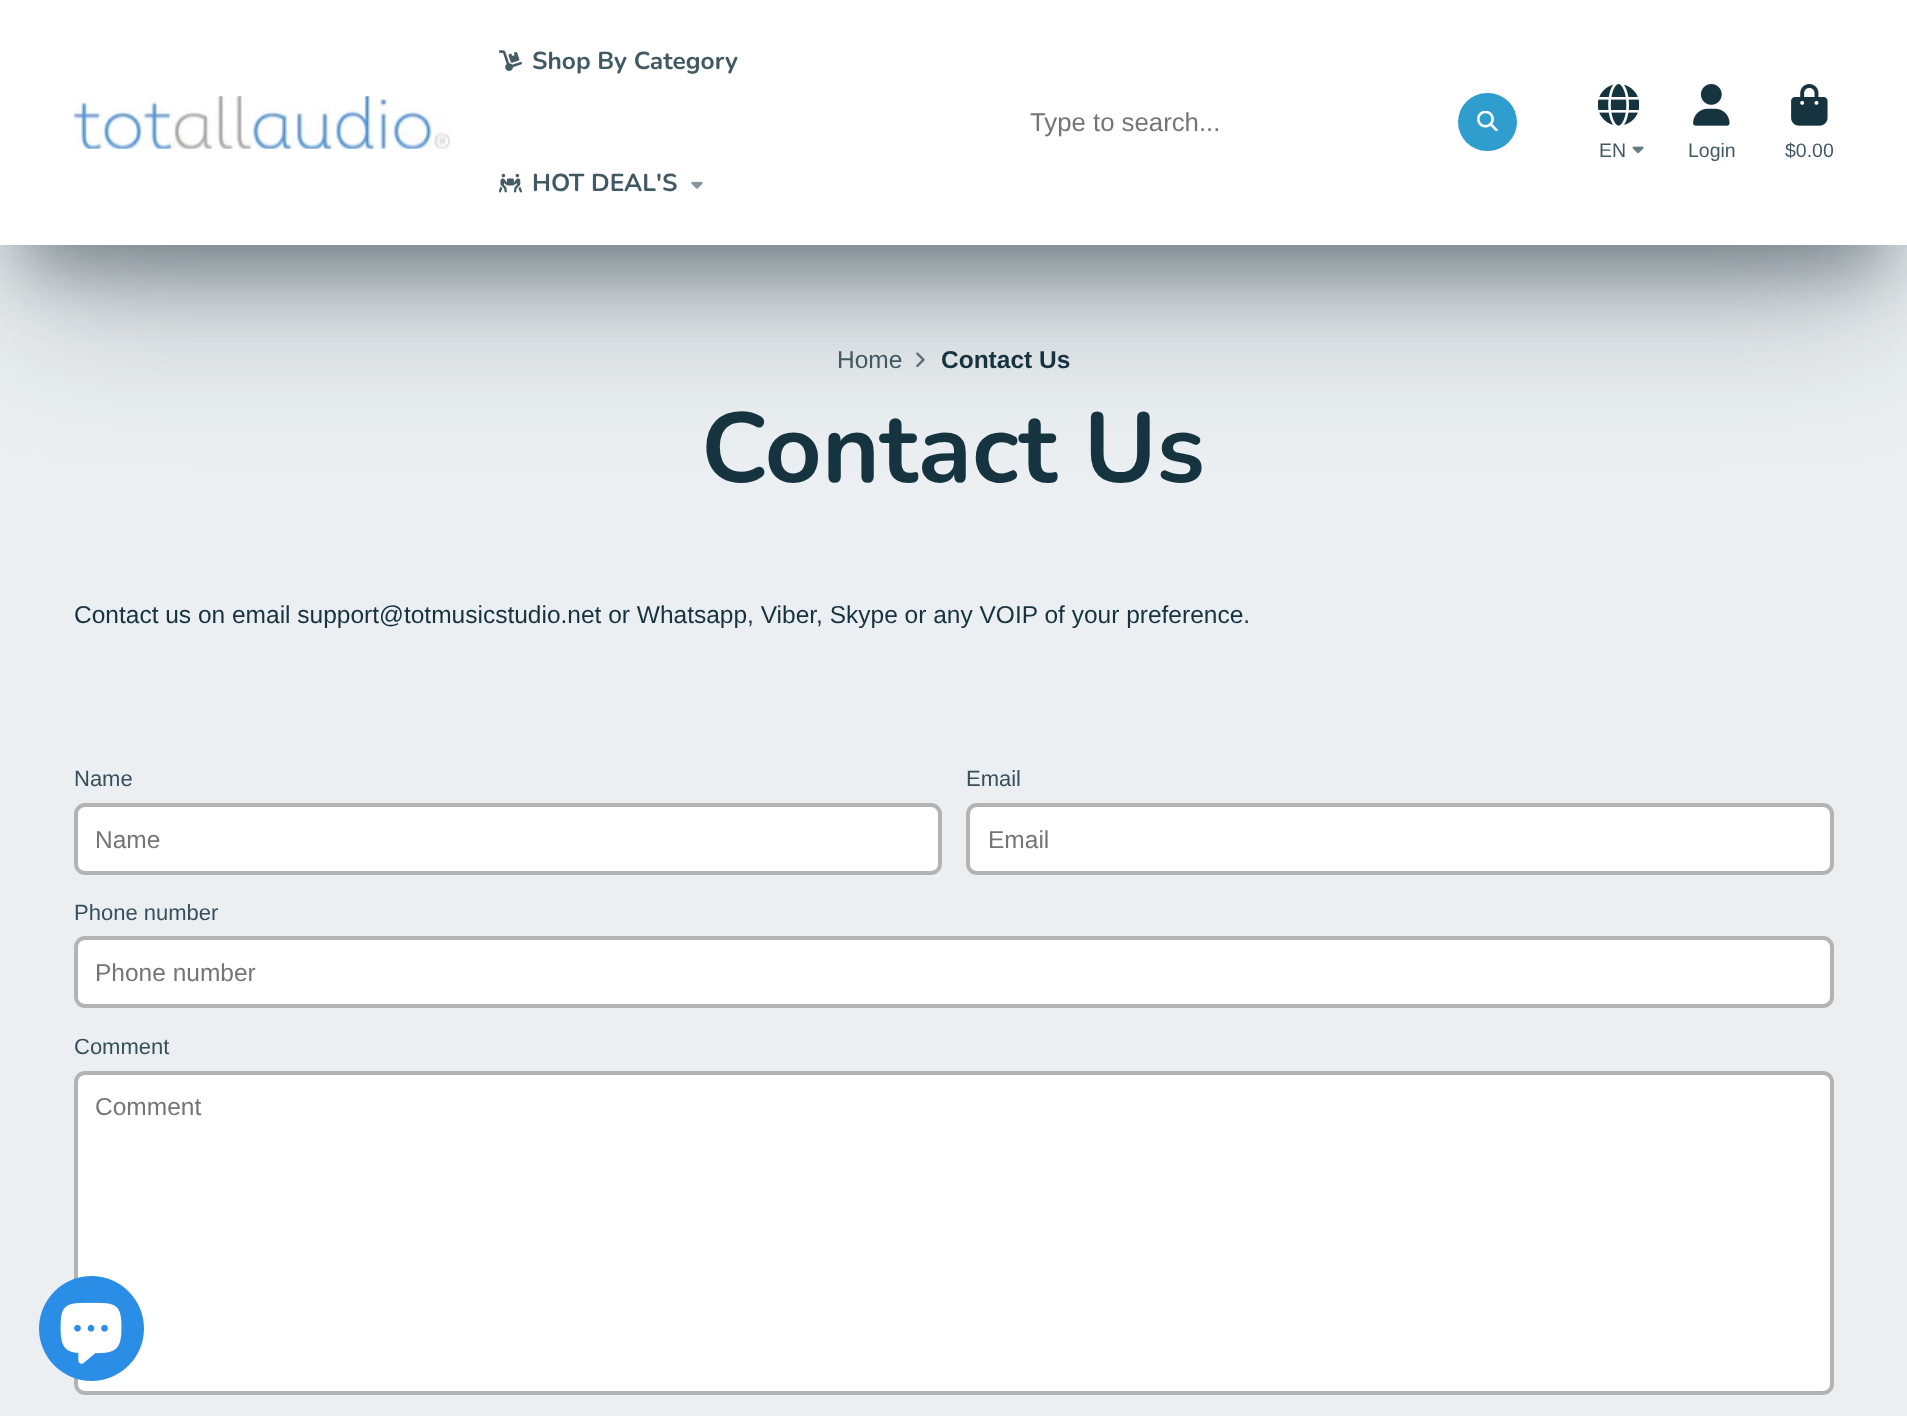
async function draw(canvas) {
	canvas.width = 1907;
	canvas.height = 1416;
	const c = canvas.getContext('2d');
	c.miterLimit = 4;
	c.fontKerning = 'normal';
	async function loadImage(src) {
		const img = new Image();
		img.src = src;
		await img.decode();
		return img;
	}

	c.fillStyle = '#ebeff1';
	c.fillRect(0, 0, 1907, 1416);
	c.drawImage(await loadImage('img10.png'), 916, 352, 9, 16);
	c.fillStyle = '#0f242d66';
	c.filter = 'blur(33.5px)';
	c.beginPath();
	c.rect(25, 70, 1858, 196);
	c.fill();
	c.filter = 'none';
	c.fillStyle = '#0f242d4d';
	c.filter = 'blur(76.5px)';
	c.beginPath();
	c.rect(25, 102, 1858, 196);
	c.fill();
	c.filter = 'none';
	c.fillStyle = '#fff';
	c.fillRect(0, 0, 1907, 245);
	c.drawImage(await loadImage('img1.png'), 73, 96, 377, 53);
	c.drawImage(await loadImage('img2.png'), 499, 50, 23, 21);
	c.font = 'bold 24.5px Nunito';
	c.fillStyle = '#415963';
	c.fillText('Shop By Category', 532, 69);
	c.drawImage(await loadImage('img3.png'), 499, 173, 23, 20);
	c.fillText('HOT DEAL\'S', 532, 191);
	c.drawImage(await loadImage('img4.png'), 691, 181, 12, 8);
	c.font = '25.75px Liberation Sans';
	c.fillStyle = '#757575';
	c.fillText('Type to search...', 1030, 131);
	c.fillStyle = '#2f9ecf';
	c.beginPath();
	c.roundRect(1458, 93, 59, 58, 29);
	c.fill();
	c.drawImage(await loadImage('img5.png'), 1477, 111, 21, 20);
	c.drawImage(await loadImage('img6.png'), 1598, 84, 41, 42);
	c.font = '19.5px Liberation Sans';
	c.fillStyle = '#415963';
	c.fillText('EN', 1599, 157);
	c.drawImage(await loadImage('img7.png'), 1632, 146, 12, 8);
	c.drawImage(await loadImage('img8.png'), 1693, 84, 37, 42);
	c.fillText('Login', 1688, 157);
	c.drawImage(await loadImage('img9.png'), 1791, 84, 37, 42);
	c.fillText('$0.00', 1785, 157);
	c.font = '24.5px Liberation Sans';
	c.fillText('Home', 837, 368);
	c.font = 'bold 24.5px Liberation Sans';
	c.fillStyle = '#163340';
	c.fillText('Contact Us', 941, 368);
	c.font = 'bold 99px Nunito';
	c.fillText('Contact Us', 701, 482);
	c.font = '24.5px Liberation Sans';
	c.fillText('Contact us on email support@totmusicstudio.net or Whatsapp, Viber, Skype or any VOIP of your preference.', 74, 623);
	c.font = '22px Liberation Sans';
	c.fillStyle = '#364f5b';
	c.fillText('Name', 74, 786);
	c.fillStyle = '#fff';
	c.beginPath();
	c.roundRect(76, 805, 864, 68, 9);
	c.fill();
	c.strokeStyle = '#b3b3b3';
	c.lineWidth = 4;
	c.stroke();
	c.font = '24.5px Liberation Sans';
	c.fillStyle = '#757575';
	c.fillText('Name', 95, 848);
	c.font = '22px Liberation Sans';
	c.fillStyle = '#364f5b';
	c.fillText('Email', 966, 786);
	c.fillStyle = '#fff';
	c.beginPath();
	c.roundRect(968, 805, 864, 68, 9);
	c.fill();
	c.stroke();
	c.font = '24.5px Liberation Sans';
	c.fillStyle = '#757575';
	c.fillText('Email', 988, 848);
	c.font = '22px Liberation Sans';
	c.fillStyle = '#364f5b';
	c.fillText('Phone number', 74, 920);
	c.fillStyle = '#fff';
	c.beginPath();
	c.roundRect(76, 938, 1756, 68, 9);
	c.fill();
	c.stroke();
	c.font = '24.5px Liberation Sans';
	c.fillStyle = '#757575';
	c.fillText('Phone number', 95, 981);
	c.font = '22px Liberation Sans';
	c.fillStyle = '#364f5b';
	c.fillText('Comment', 74, 1054);
	c.fillStyle = '#fff';
	c.beginPath();
	c.roundRect(76, 1073, 1756, 320, 9);
	c.fill();
	c.stroke();
	c.font = '24.5px Liberation Sans';
	c.fillStyle = '#757575';
	c.fillText('Comment', 95, 1115);
	c.fillStyle = '#2a8ee7';
	c.beginPath();
	c.arc(91.5, 1328.5, 52.5, 0, 2 * Math.PI);
	c.fill();
	c.drawImage(await loadImage('img11.png'), 60, 1302, 62, 62);
}

draw(document.querySelector('canvas'));
